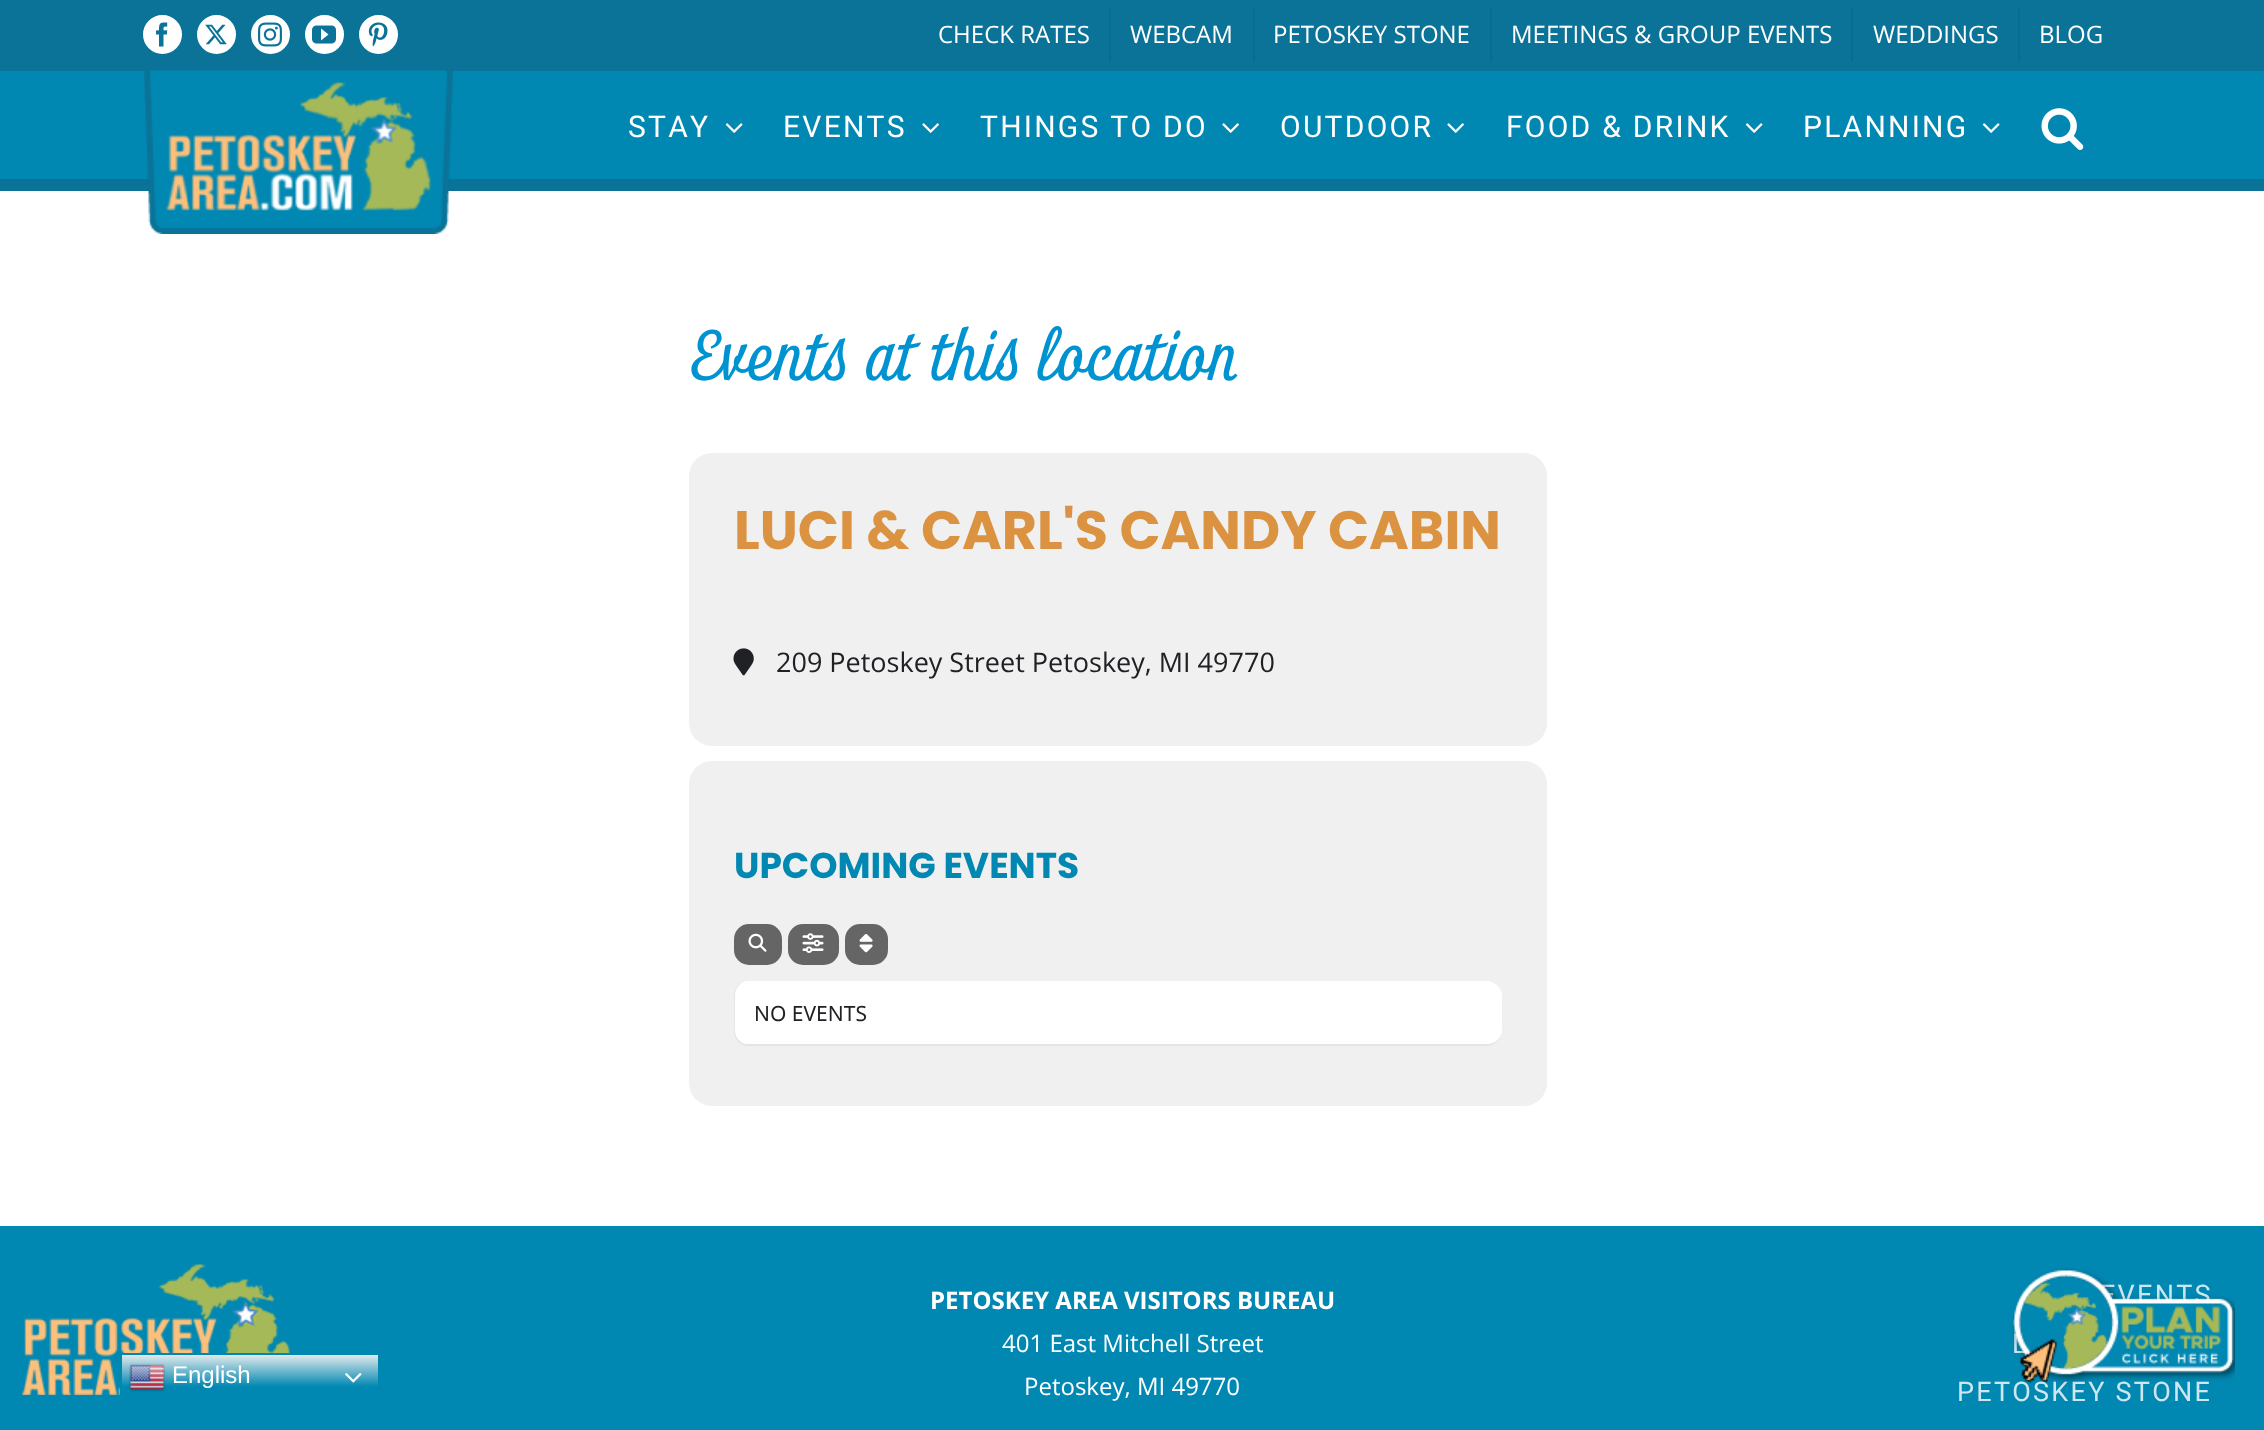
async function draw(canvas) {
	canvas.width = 2264;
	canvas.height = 1430;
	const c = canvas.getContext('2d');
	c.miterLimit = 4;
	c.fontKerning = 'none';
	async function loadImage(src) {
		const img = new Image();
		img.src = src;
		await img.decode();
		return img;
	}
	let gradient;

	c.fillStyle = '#fff';
	c.fillRect(0, 0, 2264, 1430);
	c.fillStyle = '#0a7397';
	c.fillRect(0, 0, 2264, 71);
	c.fillStyle = '#fff';
	c.beginPath();
	c.arc(162.5, 34.5, 18.5, 0, 2 * Math.PI);
	c.fill();
	c.strokeStyle = '#fff';
	c.lineWidth = 2;
	c.stroke();
	c.drawImage(await loadImage('img1.png'), 156, 22, 12, 25);
	c.beginPath();
	c.arc(216.5, 34.5, 18.5, 0, 2 * Math.PI);
	c.fill();
	c.stroke();
	c.drawImage(await loadImage('img2.png'), 205, 24, 22, 21);
	c.beginPath();
	c.arc(270.5, 34.5, 18.5, 0, 2 * Math.PI);
	c.fill();
	c.stroke();
	c.drawImage(await loadImage('img3.png'), 258, 22, 24, 25);
	c.beginPath();
	c.arc(324.5, 34.5, 18.5, 0, 2 * Math.PI);
	c.fill();
	c.stroke();
	c.drawImage(await loadImage('img4.png'), 312, 25, 24, 19);
	c.beginPath();
	c.arc(378.5, 34.5, 18.5, 0, 2 * Math.PI);
	c.fill();
	c.stroke();
	c.drawImage(await loadImage('img5.png'), 368, 22, 20, 25);
	c.font = '24px Open Sans';
	c.fillText('CHECK RATES', 938, 43);
	c.fillStyle = '#096c8e';
	c.fillRect(1109, 8, 2, 54);
	c.fillStyle = '#fff';
	c.fillText('WEBCAM', 1130, 43);
	c.fillStyle = '#096c8e';
	c.fillRect(1253, 8, 2, 54);
	c.fillStyle = '#fff';
	c.fillText('PETOSKEY STONE', 1273, 43);
	c.fillStyle = '#096c8e';
	c.fillRect(1490, 8, 2, 54);
	c.fillStyle = '#fff';
	c.fillText('MEETINGS & GROUP EVENTS', 1511, 43);
	c.fillStyle = '#096c8e';
	c.fillRect(1851, 8, 2, 54);
	c.fillStyle = '#fff';
	c.fillText('WEDDINGS', 1873, 43);
	c.fillStyle = '#096c8e';
	c.fillRect(2018, 8, 2, 54);
	c.fillStyle = '#fff';
	c.fillText('BLOG', 2039, 43);
	c.fillStyle = '#0088b2';
	c.fillRect(0, 71, 2264, 108);
	c.fillStyle = '#0a7397';
	c.fillRect(0, 179, 2264, 12);
	c.drawImage(await loadImage('img6.png'), 144, 70, 309, 164);
	c.letterSpacing = '2.25px';
	c.font = '30px Roboto';
	c.fillStyle = '#fff';
	c.fillText('STAY', 628, 137);
	c.drawImage(await loadImage('img7.png'), 725, 123, 18, 10);
	c.fillText('EVENTS', 783, 137);
	c.drawImage(await loadImage('img8.png'), 922, 123, 17, 10);
	c.fillText('THINGS TO DO', 980, 137);
	c.drawImage(await loadImage('img8.png'), 1222, 123, 17, 10);
	c.fillText('OUTDOOR', 1280, 137);
	c.drawImage(await loadImage('img8.png'), 1447, 123, 17, 10);
	c.fillText('FOOD & DRINK', 1506, 137);
	c.drawImage(await loadImage('img7.png'), 1745, 123, 18, 10);
	c.fillText('PLANNING', 1803, 137);
	c.drawImage(await loadImage('img7.png'), 1982, 123, 18, 10);
	c.drawImage(await loadImage('img9.png'), 2041, 108, 43, 42);
	c.letterSpacing = '0px';
	c.wordSpacing = '4px';
	c.font = '72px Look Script';
	c.fillStyle = '#0093d1';
	c.fillText('Events at this location', 689, 380);
	c.fillStyle = '#f0f0f0';
	c.beginPath();
	c.roundRect(689, 453, 858, 293, 23);
	c.fill();
	c.wordSpacing = '0px';
	c.font = 'bold 54px Poppins';
	c.fillStyle = '#db9341';
	c.fillText('LUCI & CARL\'S CANDY CABIN', 734, 549);
	c.drawImage(await loadImage('img10.png'), 733, 648, 21, 28);
	c.font = '27px Open Sans';
	c.fillStyle = '#202124';
	c.fillText('209 Petoskey Street Petoskey, MI 49770', 776, 672);
	c.fillStyle = '#f0f0f0';
	c.beginPath();
	c.roundRect(689, 761, 858, 345, 23);
	c.fill();
	c.font = 'bold 36px Poppins';
	c.fillStyle = '#0088b2';
	c.fillText('UPCOMING EVENTS', 734, 878);
	c.fillStyle = '#656565';
	c.beginPath();
	c.roundRect(734, 924, 48, 41, 15);
	c.fill();
	c.drawImage(await loadImage('img11.png'), 748, 933, 19, 19);
	c.beginPath();
	c.roundRect(788, 924, 51, 41, 15);
	c.fill();
	c.drawImage(await loadImage('img12.png'), 802, 933, 22, 20);
	c.beginPath();
	c.roundRect(845, 924, 43, 41, 15);
	c.fill();
	c.drawImage(await loadImage('img13.png'), 859, 934, 14, 19);
	c.fillStyle = '#e5e5e5';
	c.beginPath();
	c.moveTo(748, 981);
	c.lineTo(1486, 981);
	c.bezierCurveTo(1495, 981, 1502, 988, 1502, 996);
	c.lineTo(1502, 1030);
	c.bezierCurveTo(1502, 1039, 1495, 1046, 1486, 1046);
	c.lineTo(748, 1046);
	c.bezierCurveTo(740, 1046, 734, 1039, 734, 1030);
	c.lineTo(734, 996);
	c.bezierCurveTo(734, 988, 740, 981, 748, 981);
	c.closePath();
	c.moveTo(748, 981);
	c.lineTo(1486, 981);
	c.bezierCurveTo(1495, 981, 1502, 988, 1502, 996);
	c.lineTo(1502, 1030);
	c.bezierCurveTo(1502, 1038, 1495, 1044, 1486, 1044);
	c.lineTo(748, 1044);
	c.bezierCurveTo(741, 1044, 735, 1038, 735, 1030);
	c.lineTo(735, 996);
	c.bezierCurveTo(735, 988, 741, 981, 748, 981);
	c.closePath();
	c.fill('evenodd');
	c.fillStyle = '#fff';
	c.beginPath();
	c.moveTo(748, 981);
	c.bezierCurveTo(741, 981, 735, 988, 735, 996);
	c.lineTo(735, 1030);
	c.bezierCurveTo(735, 1038, 741, 1044, 748, 1044);
	c.lineTo(1486, 1044);
	c.bezierCurveTo(1495, 1044, 1502, 1038, 1502, 1030);
	c.lineTo(1502, 996);
	c.bezierCurveTo(1502, 988, 1495, 981, 1486, 981);
	c.closePath();
	c.fill();
	c.font = '21px Noto Sans';
	c.fillStyle = '#202124';
	c.fillText('NO EVENTS', 754, 1021);
	c.fillStyle = '#0088b2';
	c.fillRect(0, 1226, 2264, 204);
	c.drawImage(await loadImage('img16.png'), 22, 1264, 269, 131);
	gradient = c.createLinearGradient(250, 1353, 250, 1401);
	gradient.addColorStop(0, '#efefef');
	gradient.addColorStop(0.7, '#0088b2');
	c.fillStyle = gradient;
	c.fillRect(122, 1355, 256, 40);
	c.strokeStyle = '#0088b2';
	c.strokeRect(121, 1354, 258, 46);
	c.drawImage(await loadImage('img14.png'), 129, 1363, 36, 29);
	c.font = '24px Liberation Sans';
	c.fillStyle = '#fff';
	c.fillText('English', 172, 1383);
	c.drawImage(await loadImage('img15.png'), 345, 1373, 17, 10);
	c.font = 'bold 24px Open Sans';
	c.fillText('PETOSKEY AREA VISITORS BUREAU', 930, 1309);
	c.font = '24px Open Sans';
	c.fillText('401 East Mitchell Street', 1002, 1352);
	c.fillText('Petoskey, MI 49770', 1024, 1395);
	c.letterSpacing = '2.25px';
	c.font = '27px Roboto';
	c.fillStyle = '#cce7f0';
	for (const [text, x, y] of [
		['EVENTS', 2100, 1304],
		['L', 2012, 1353],
		['PETOSKEY STONE', 1957, 1401],
	]) {
		c.fillText(text, x, y);
	}
	c.drawImage(await loadImage('img17.png'), 2011, 1267, 224, 117);
}

draw(document.querySelector('canvas'));
